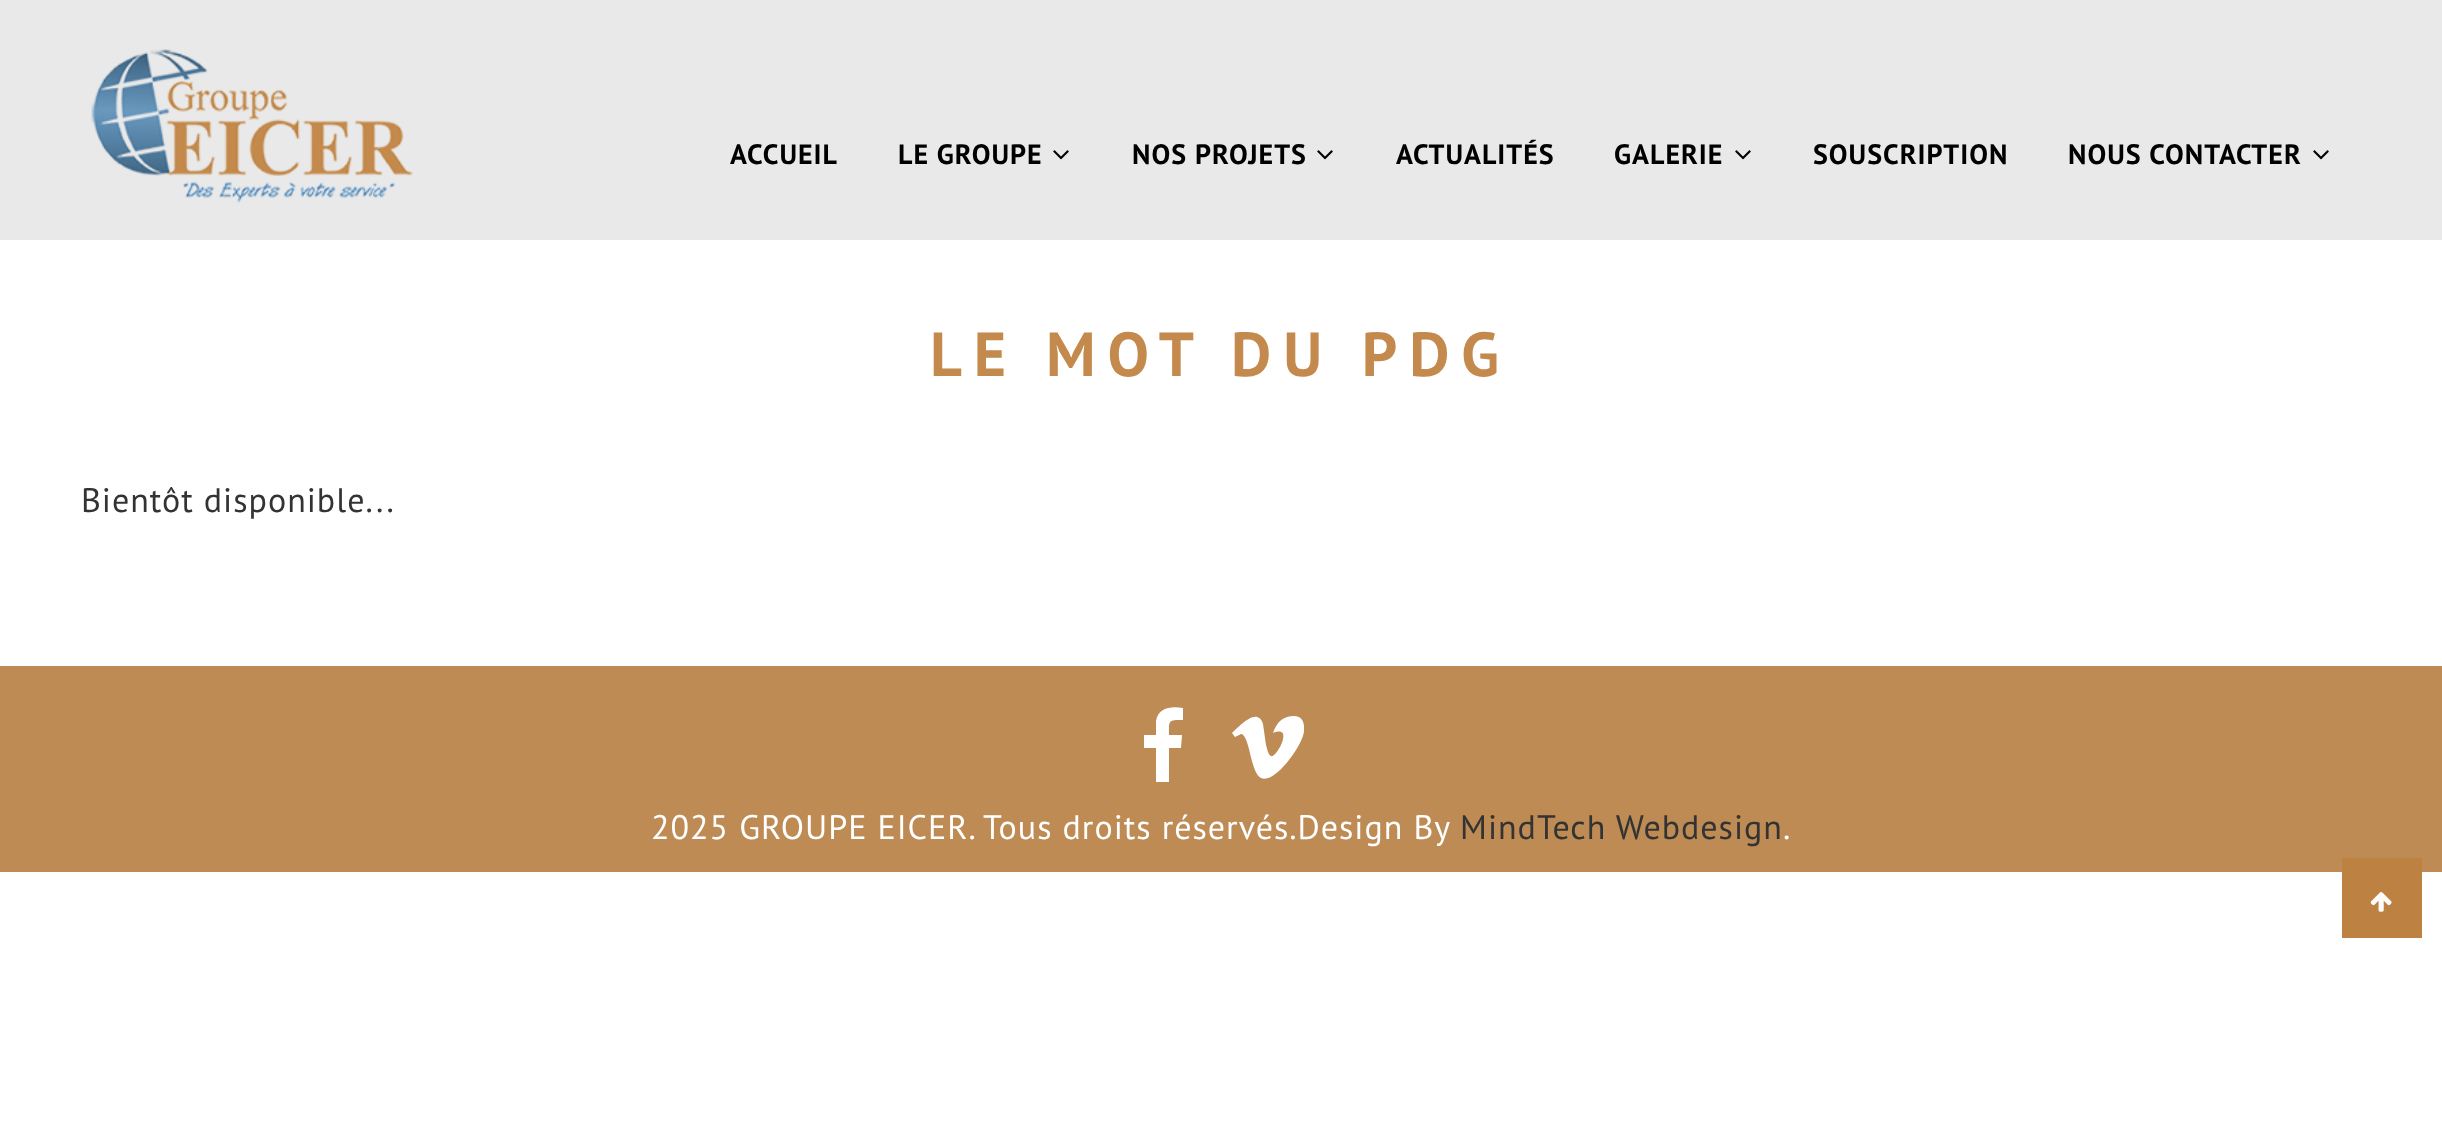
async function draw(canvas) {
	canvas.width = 2442;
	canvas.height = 1130;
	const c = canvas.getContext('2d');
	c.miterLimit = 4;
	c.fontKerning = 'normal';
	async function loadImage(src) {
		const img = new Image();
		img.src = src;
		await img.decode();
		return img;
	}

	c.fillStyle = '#fff';
	c.fillRect(0, 0, 2442, 1130);
	c.fillStyle = '#e9e9e9';
	c.fillRect(0, 0, 2442, 240);
	c.drawImage(await loadImage('img1.png'), 91, 49, 322, 155);
	c.letterSpacing = '1px';
	c.font = 'bold 28px PT Sans';
	c.fillStyle = '#000';
	c.fillText('ACCUEIL', 730, 164);
	c.fillText('LE GROUPE', 898, 164);
	c.drawImage(await loadImage('img2.png'), 1053, 150, 16, 10);
	c.fillText('NOS PROJETS', 1132, 164);
	c.drawImage(await loadImage('img2.png'), 1317, 150, 16, 10);
	c.fillText('ACTUALITÉS', 1396, 164);
	c.fillText('GALERIE', 1614, 164);
	c.drawImage(await loadImage('img2.png'), 1735, 150, 16, 10);
	c.fillText('SOUSCRIPTION', 1813, 164);
	c.fillText('NOUS CONTACTER', 2068, 164);
	c.drawImage(await loadImage('img2.png'), 2313, 150, 16, 10);
	c.letterSpacing = '12px';
	c.font = 'bold 62px PT Sans';
	c.fillStyle = '#c4894c';
	c.fillText('LE MOT DU PDG', 930, 376);
	c.letterSpacing = '1px';
	c.font = '34px PT Sans';
	c.fillStyle = '#333';
	c.fillText('Bientôt disponible...', 81, 512);
	c.fillStyle = '#bd8b53';
	c.fillRect(0, 666, 2442, 206);
	c.fillStyle = '#fff';
	c.beginPath();
	c.moveTo(1183, 708);
	c.lineTo(1183, 720);
	c.bezierCurveTo(1168, 720, 1169, 720, 1169, 735);
	c.lineTo(1182, 735);
	c.lineTo(1181, 748);
	c.lineTo(1169, 748);
	c.lineTo(1169, 782);
	c.lineTo(1156, 782);
	c.lineTo(1156, 748);
	c.lineTo(1144, 748);
	c.lineTo(1144, 735);
	c.lineTo(1156, 735);
	c.lineTo(1156, 721);
	c.bezierCurveTo(1158, 707, 1172, 706, 1183, 708);
	c.closePath();
	c.fill();
	c.beginPath();
	c.moveTo(1304, 731);
	c.bezierCurveTo(1304, 743, 1275, 785, 1261, 778);
	c.bezierCurveTo(1250, 772, 1250, 735, 1241, 734);
	c.lineTo(1235, 737);
	c.lineTo(1232, 733);
	c.bezierCurveTo(1239, 727, 1257, 706, 1263, 724);
	c.lineTo(1266, 745);
	c.bezierCurveTo(1267, 748, 1268, 755, 1271, 756);
	c.bezierCurveTo(1276, 759, 1295, 724, 1273, 733);
	c.bezierCurveTo(1277, 721, 1284, 716, 1294, 716);
	c.bezierCurveTo(1301, 716, 1305, 721, 1304, 731);
	c.closePath();
	c.fill();
	c.fillText('2025 GROUPE EICER. Tous droits réservés.Design By', 651, 839);
	c.fillStyle = '#333';
	c.fillText('MindTech Webdesign', 1460, 839);
	c.fillStyle = '#fff';
	c.fillText('.', 1783, 839);
	c.fillStyle = '#bd8141';
	c.fillRect(2342, 858, 80, 80);
	c.drawImage(await loadImage('img3.png'), 2370, 892, 22, 20);
}

draw(document.querySelector('canvas'));
